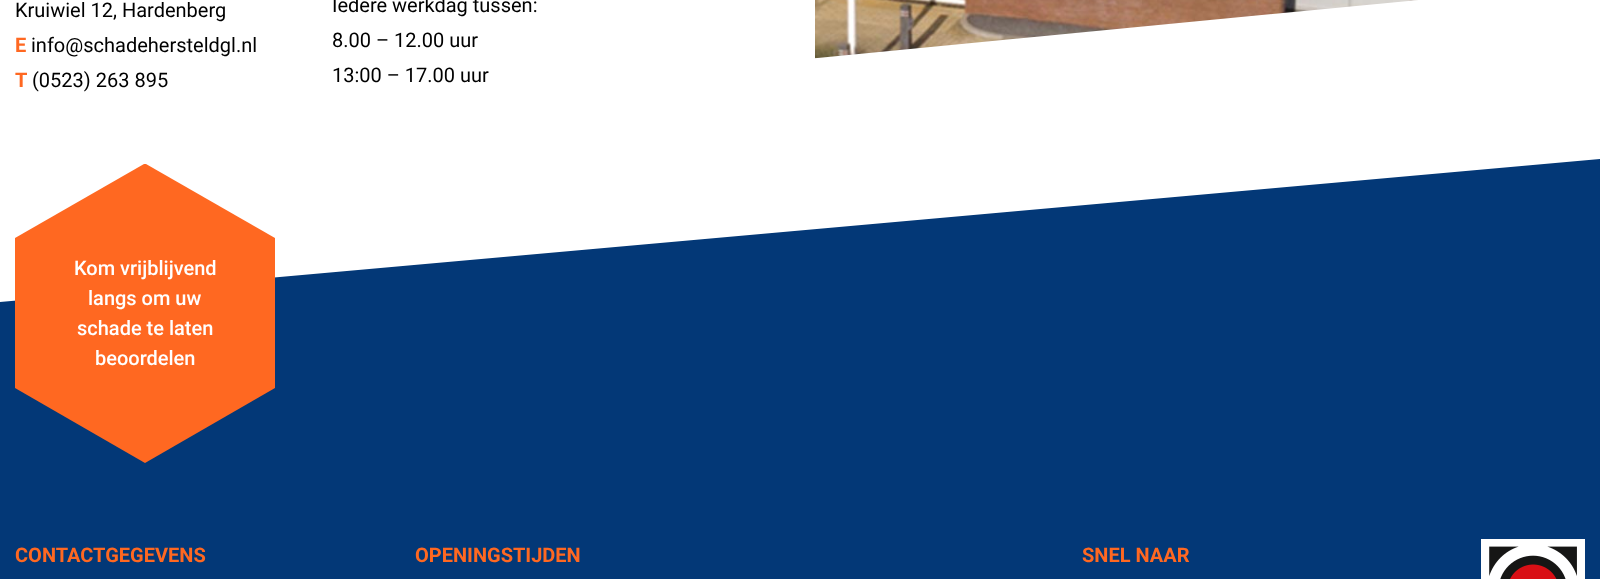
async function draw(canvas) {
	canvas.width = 1600;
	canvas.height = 579;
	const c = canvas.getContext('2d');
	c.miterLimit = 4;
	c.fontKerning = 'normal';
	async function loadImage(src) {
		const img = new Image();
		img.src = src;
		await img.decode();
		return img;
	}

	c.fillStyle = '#fff';
	c.fillRect(0, 0, 1600, 579);
	c.font = '20px Roboto';
	c.fillStyle = '#000';
	c.fillText('Kruiwiel 12, Hardenberg', 15, 17);
	c.font = 'bold 20px Roboto';
	c.fillStyle = '#ff6821';
	c.fillText('E', 15, 52);
	c.font = '20px Roboto';
	c.fillStyle = '#000';
	c.fillText('info@schadehersteldgl.nl', 31, 52);
	c.font = 'bold 20px Roboto';
	c.fillStyle = '#ff6821';
	c.fillText('T', 15, 87);
	c.font = '20px Roboto';
	c.fillStyle = '#000';
	for (const [text, x, y] of [
		['(0523) 263 895', 32, 87],
		['Iedere werkdag tussen:', 332, 12],
		['8.00 – 12.00 uur', 332, 47],
		['13:00 – 17.00 uur', 332, 82],
	]) {
		c.fillText(text, x, y);
	}
	c.drawImage(await loadImage('img1.png'), 815, 0, 603, 59);
	c.fillStyle = '#033877';
	c.fillRect(0, 159, 1600, 420);
	c.fillStyle = '#fff';
	c.beginPath();
	c.moveTo(0, 98);
	c.lineTo(0, 302);
	c.lineTo(1600, 159);
	c.lineTo(1600, 98);
	c.closePath();
	c.fill();
	c.fillStyle = '#ff6821';
	c.beginPath();
	c.moveTo(15, 238);
	c.lineTo(15, 388);
	c.lineTo(145, 463);
	c.lineTo(275, 388);
	c.lineTo(275, 238);
	c.lineTo(146, 164);
	c.lineTo(144, 164);
	c.closePath();
	c.fill();
	c.font = '500 20px Roboto';
	c.fillStyle = '#fff';
	for (const [text, x, y] of [
		['Kom vrijblijvend', 74, 275],
		['langs om uw', 88, 305],
		['schade te laten', 77, 335],
		['beoordelen', 95, 365],
	]) {
		c.fillText(text, x, y);
	}
	c.font = 'bold 20px Roboto';
	c.fillStyle = '#ff6821';
	for (const [text, x, y] of [
		['CONTACTGEGEVENS', 15, 562],
		['OPENINGSTIJDEN', 415, 562],
		['SNEL NAAR', 1082, 562],
	]) {
		c.fillText(text, x, y);
	}
	c.drawImage(await loadImage('img2.png'), 1481, 539, 104, 40);
}

draw(document.querySelector('canvas'));
